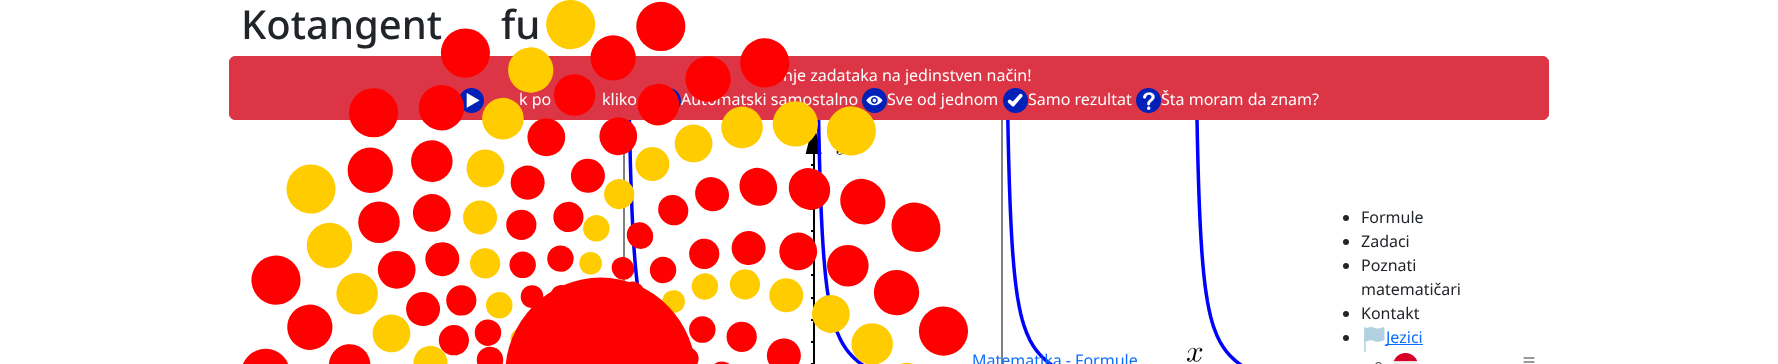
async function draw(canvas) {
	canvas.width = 1778;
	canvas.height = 364;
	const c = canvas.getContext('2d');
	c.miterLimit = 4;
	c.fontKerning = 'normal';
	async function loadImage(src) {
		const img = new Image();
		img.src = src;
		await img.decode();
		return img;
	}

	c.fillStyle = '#fff';
	c.fillRect(0, 0, 1778, 364);
	c.font = '500 40px Noto Sans';
	c.fillStyle = '#212529';
	c.fillText('Kotangent', 241, 39);
	c.fillText('fu', 501, 39);
	c.fillStyle = '#dc3545';
	c.beginPath();
	c.roundRect(229.5, 56.5, 1319, 63, 5.5);
	c.fill();
	c.strokeStyle = '#dc3545';
	c.stroke();
	c.font = '16px Noto Sans';
	c.fillStyle = '#fff';
	c.fillText('nje zadataka na jedinstven način!', 783, 81);
	c.drawImage(await loadImage('img1.png'), 460, 88, 24, 25);
	c.fillText('k po', 519, 105);
	c.fillText('kliko', 602, 105);
	c.drawImage(await loadImage('img2.png'), 671, 88, 10, 21);
	c.fillText('Automatski samostalno', 681, 105);
	c.drawImage(await loadImage('img3.png'), 862, 88, 25, 25);
	c.fillText('Sve od jednom', 887, 105);
	c.drawImage(await loadImage('img4.png'), 1003, 88, 25, 25);
	c.fillText('Samo rezultat', 1028, 105);
	c.drawImage(await loadImage('img5.png'), 1136, 88, 25, 25);
	c.fillText('Šta moram da znam?', 1161, 105);
	c.drawImage(await loadImage('img6.png'), 623, 120, 620, 244);
	c.fillStyle = '#212529';
	c.beginPath();
	c.arc(1346, 218, 3, 0, 2 * Math.PI);
	c.fill();
	c.fillText('Formule', 1361, 223);
	c.beginPath();
	c.arc(1346, 242, 3, 0, 2 * Math.PI);
	c.fill();
	c.fillText('Zadaci', 1361, 247);
	c.beginPath();
	c.arc(1346, 266, 3, 0, 2 * Math.PI);
	c.fill();
	c.fillText('Poznati', 1361, 271);
	c.fillText('matematičari', 1361, 295);
	c.beginPath();
	c.arc(1346, 314, 3, 0, 2 * Math.PI);
	c.fill();
	c.fillText('Kontakt', 1361, 319);
	c.beginPath();
	c.arc(1346, 338, 3, 0, 2 * Math.PI);
	c.fill();
	c.drawImage(await loadImage('img7.png'), 1364, 327, 21, 25);
	c.fillStyle = '#0d6efd';
	c.fillRect(1386, 344, 37, 1);
	c.fillText('Jezici', 1386, 343);
	c.drawImage(await loadImage('img8.png'), 1393, 353, 25, 11);
	c.beginPath();
	c.arc(1378.5, 365.5, 3, 0, 2 * Math.PI);
	c.strokeStyle = '#212529';
	c.stroke();
	c.drawImage(await loadImage('img9.png'), 1523, 357, 12, 6);
	c.drawImage(await loadImage('img10.png'), 243, 0, 725, 364);
	c.fillText('Matematika - Formule', 972, 366);
}

draw(document.querySelector('canvas'));
